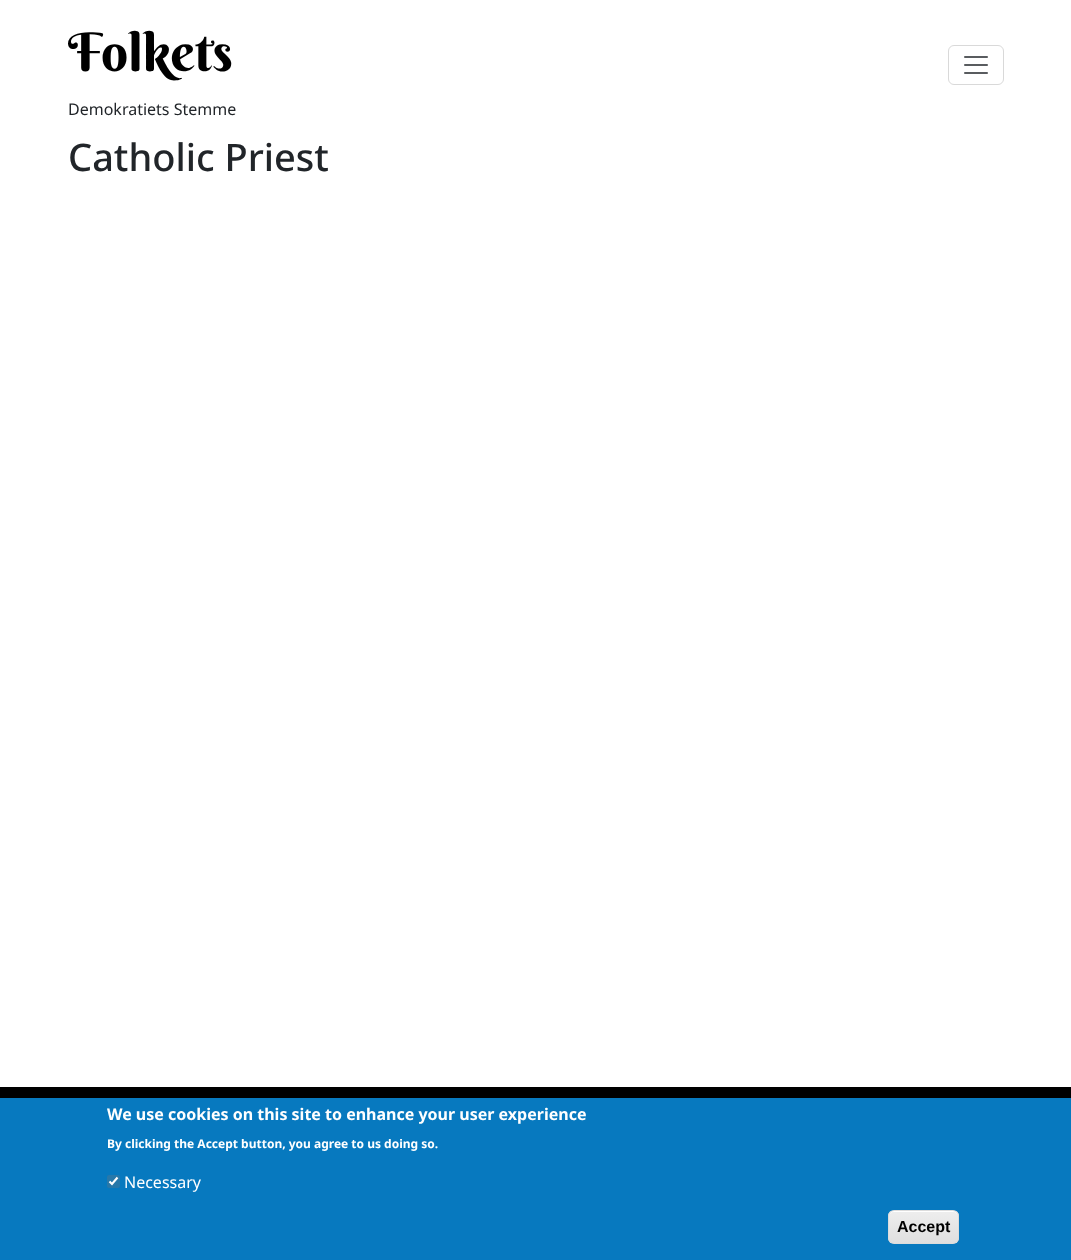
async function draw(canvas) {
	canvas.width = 1071;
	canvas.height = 1260;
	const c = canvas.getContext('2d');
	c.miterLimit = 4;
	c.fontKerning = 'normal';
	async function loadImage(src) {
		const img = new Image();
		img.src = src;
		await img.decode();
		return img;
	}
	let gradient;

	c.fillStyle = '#fff';
	c.fillRect(0, 0, 1071, 1260);
	c.font = '53px Berkshire Swash';
	c.fillStyle = '#000';
	c.fillText('Folkets', 68, 71);
	c.font = '16px Noto Sans';
	c.fillStyle = '#212529';
	c.fillText('Demokratiets Stemme', 68, 115);
	c.beginPath();
	c.roundRect(948.5, 45.5, 55, 39, 5.5);
	c.strokeStyle = '#d9d9d9';
	c.stroke();
	c.drawImage(await loadImage('img1.png'), 964, 56, 24, 18);
	c.font = '500 38px Noto Sans';
	c.fillText('Catholic Priest', 68, 171);
	c.fillStyle = '#000';
	c.fillRect(0, 1087, 1071, 11);
	c.fillStyle = '#0779bf';
	c.fillRect(0, 1098, 1071, 162);
	c.font = 'bold 16px Noto Sans';
	c.fillStyle = '#fff';
	c.fillText('We use cookies on this site to enhance your user experience', 107, 1120);
	c.font = 'bold 12px Noto Sans';
	c.fillText('By clicking the Accept button, you agree to us doing so.', 107, 1148);
	c.fillStyle = '#2878a9';
	c.beginPath();
	c.roundRect(107, 1175, 13, 13, 2);
	c.fill();
	c.beginPath();
	c.moveTo(109.5, 1181.5);
	c.lineTo(112, 1184);
	c.lineTo(117.5, 1177.5);
	c.strokeStyle = '#fff';
	c.lineWidth = 2.1;
	c.stroke();
	c.font = '16px Noto Sans';
	c.fillStyle = '#fff';
	c.fillText('Necessary', 124, 1188);
	c.save();
	c.beginPath();
	c.roundRect(888, 1210, 71, 34, 6);
	c.clip();
	gradient = c.createLinearGradient(924, 1211, 924, 1243);
	gradient.addColorStop(0.05, '#ededed');
	gradient.addColorStop(1, '#dfdfdf');
	c.fillStyle = gradient;
	c.fillRect(888, 1211, 71, 32);
	c.restore();
	c.beginPath();
	c.moveTo(894, 1212);
	c.lineTo(953, 1212);
	c.bezierCurveTo(956, 1212, 958, 1214, 958, 1217);
	c.bezierCurveTo(958, 1209, 949, 1211, 943, 1211);
	c.lineTo(904, 1211);
	c.bezierCurveTo(898, 1211, 889, 1209, 889, 1217);
	c.bezierCurveTo(889, 1214, 891, 1212, 894, 1212);
	c.closePath();
	c.fill();
	c.beginPath();
	c.roundRect(888.5, 1210.5, 70, 33, 5.5);
	c.strokeStyle = '#dcdcdc';
	c.lineWidth = 1;
	c.stroke();
	c.font = 'bold 16px Liberation Sans';
	c.fillStyle = '#000';
	c.fillText('Accept', 897, 1232);
}

draw(document.querySelector('canvas'));
